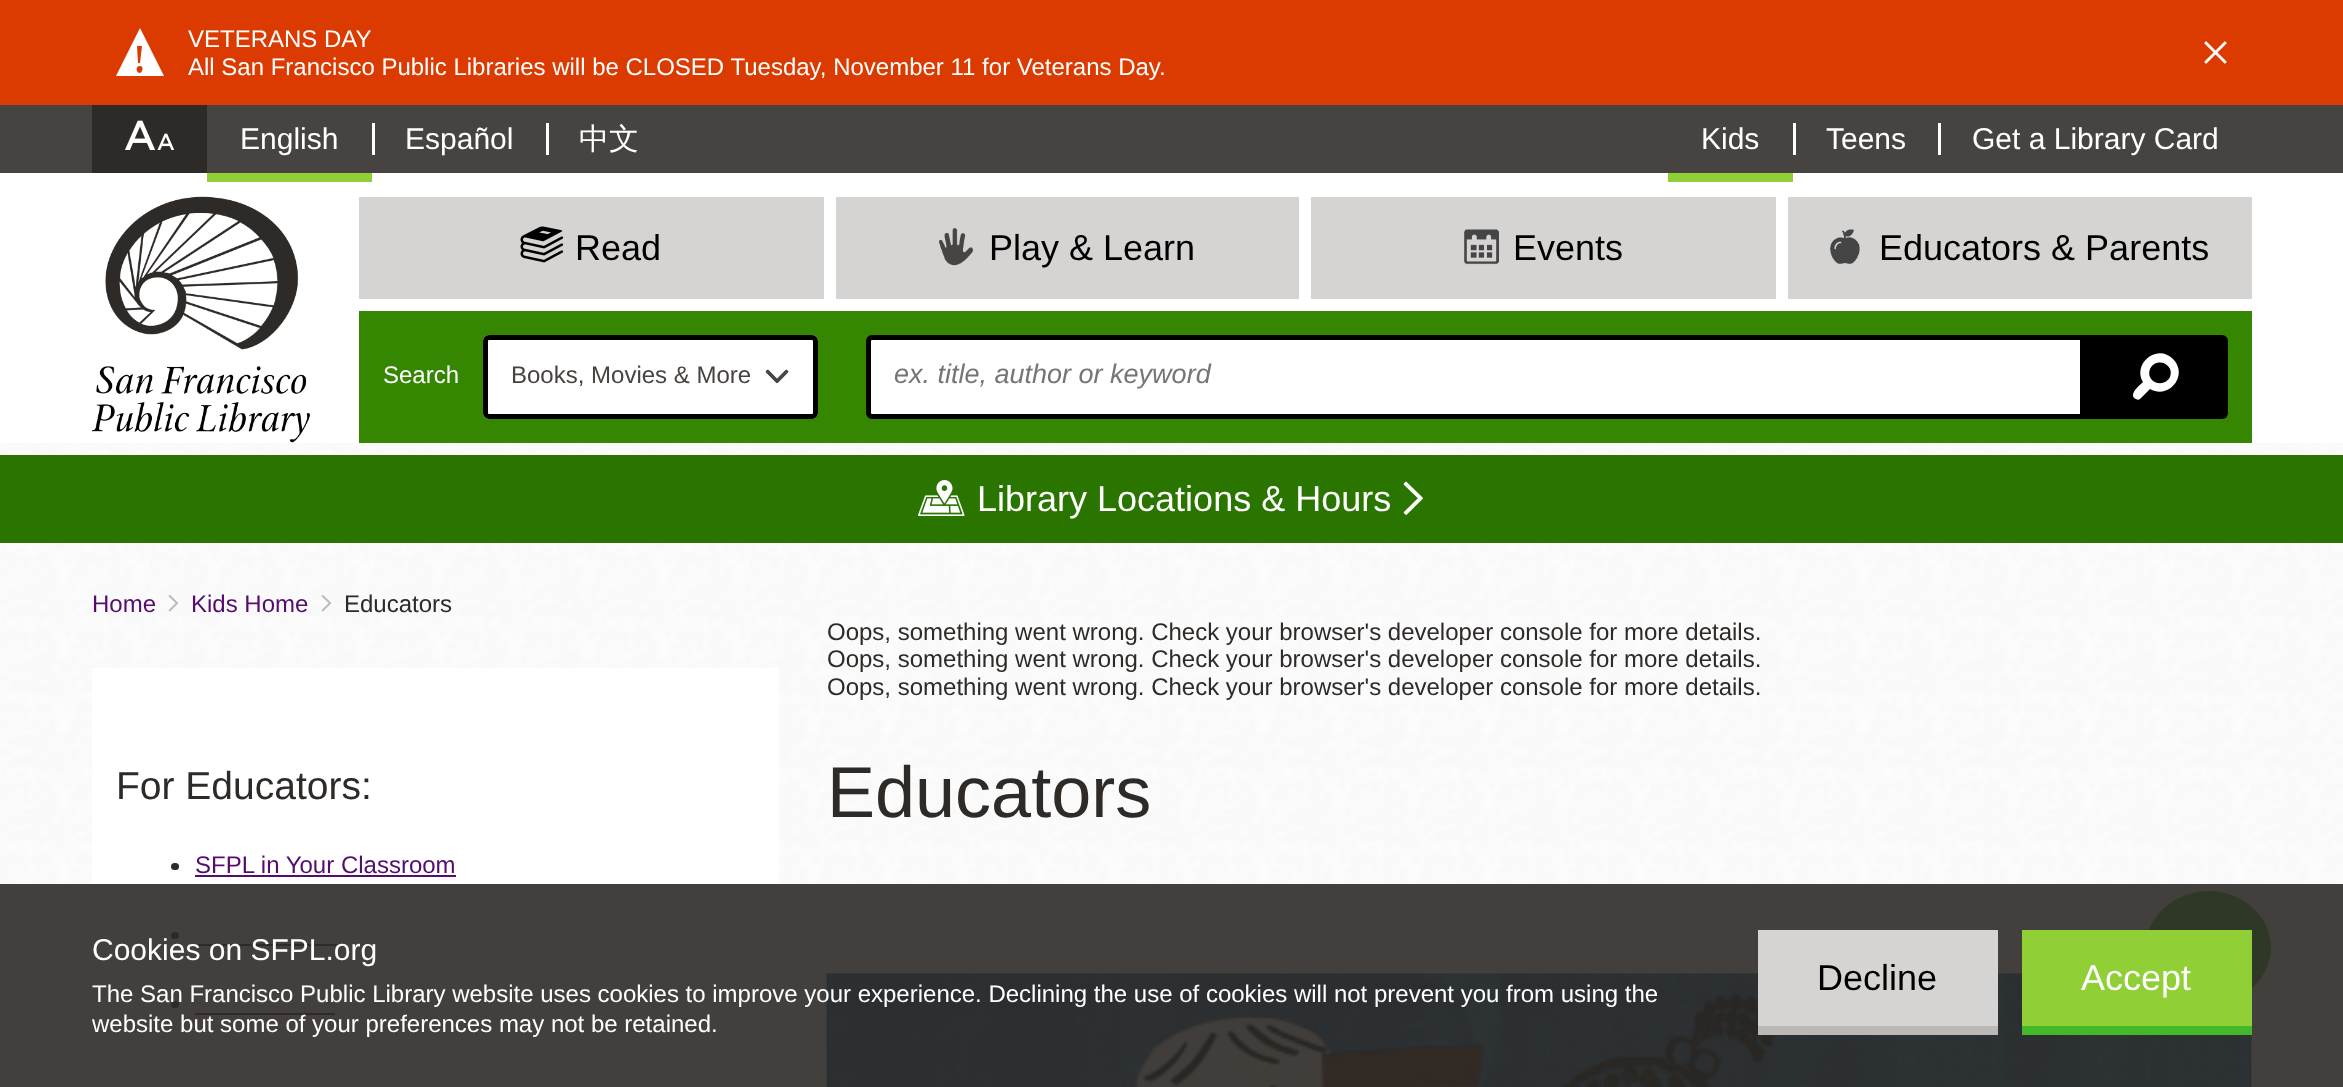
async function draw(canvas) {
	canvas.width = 2343;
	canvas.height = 1087;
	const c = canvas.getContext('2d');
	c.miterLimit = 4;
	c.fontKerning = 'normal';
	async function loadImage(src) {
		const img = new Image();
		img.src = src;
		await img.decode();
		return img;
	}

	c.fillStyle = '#fff';
	c.fillRect(0, 0, 2343, 1087);
	c.drawImage(await loadImage('img1.png'), 0, 443, 2343, 644);
	c.fillStyle = '#db3a00';
	c.fillRect(0, 0, 2343, 105);
	c.fillStyle = '#fff';
	c.beginPath();
	c.moveTo(140, 28);
	c.lineTo(116, 76);
	c.lineTo(164, 76);
	c.closePath();
	c.moveTo(137, 46);
	c.lineTo(142, 46);
	c.lineTo(140, 63);
	c.lineTo(138, 63);
	c.closePath();
	c.moveTo(140, 73);
	c.bezierCurveTo(136, 73, 135, 66, 140, 66);
	c.bezierCurveTo(144, 66, 143, 73, 139, 73);
	c.closePath();
	c.fill();
	c.font = '24px Liberation Sans';
	c.fillText('VETERANS DAY', 188, 47);
	c.fillText('All San Francisco Public Libraries will be CLOSED Tuesday, November 11 for Veterans Day.', 188, 75);
	c.drawImage(await loadImage('img2.png'), 2204, 41, 23, 23);
	c.fillStyle = '#474340';
	c.fillRect(0, 105, 2343, 68);
	c.fillStyle = '#2e2a27';
	c.fillRect(92, 105, 115, 68);
	c.drawImage(await loadImage('img3.png'), 125, 120, 50, 30);
	c.fillStyle = '#90cf36';
	c.fillRect(207, 173, 165, 9);
	c.font = '30px Liberation Sans';
	c.fillStyle = '#fff';
	c.fillText('English', 240, 149);
	c.fillRect(372, 123, 3, 32);
	c.fillText('Español', 405, 149);
	c.fillRect(546, 123, 3, 32);
	c.font = '500 30px WenQuanYi Zen Hei';
	c.fillText('中文', 579, 149);
	c.fillStyle = '#90cf36';
	c.fillRect(1668, 173, 125, 9);
	c.font = '30px Liberation Sans';
	c.fillStyle = '#fff';
	c.fillText('Kids', 1701, 149);
	c.fillRect(1793, 123, 3, 32);
	c.fillText('Teens', 1826, 149);
	c.fillRect(1938, 123, 3, 32);
	c.fillText('Get a Library Card', 1972, 149);
	c.drawImage(await loadImage('img4.png'), 91, 196, 219, 247);
	c.fillStyle = '#d6d4d2';
	c.fillRect(359, 197, 465, 102);
	c.drawImage(await loadImage('img5.png'), 520, 226, 44, 37);
	c.font = '36px Liberation Sans';
	c.fillStyle = '#000';
	c.fillText('Read', 575, 260);
	c.fillStyle = '#d6d4d2';
	c.fillRect(836, 197, 463, 102);
	c.drawImage(await loadImage('img6.png'), 939, 228, 34, 38);
	c.fillStyle = '#000';
	c.fillText('Play & Learn', 989, 260);
	c.fillStyle = '#d6d4d2';
	c.fillRect(1311, 197, 465, 102);
	c.drawImage(await loadImage('img7.png'), 1464, 229, 35, 36);
	c.fillStyle = '#000';
	c.fillText('Events', 1513, 260);
	c.fillStyle = '#d6d4d2';
	c.fillRect(1788, 197, 464, 102);
	c.drawImage(await loadImage('img8.png'), 1830, 229, 30, 36);
	c.fillStyle = '#000';
	c.fillText('Educators & Parents', 1879, 260);
	c.fillStyle = '#358600';
	c.fillRect(359, 311, 1893, 132);
	c.font = '24px Liberation Sans';
	c.fillStyle = '#fff';
	c.fillText('Search', 383, 383);
	c.beginPath();
	c.roundRect(483, 335, 335, 84, 6);
	c.fill();
	c.drawImage(await loadImage('img9.png'), 765, 369, 24, 15);
	c.beginPath();
	c.roundRect(485.5, 337.5, 330, 79, 3.5);
	c.strokeStyle = '#000';
	c.lineWidth = 5;
	c.stroke();
	c.fillStyle = '#474340';
	c.fillText('Books, Movies & More', 511, 383);
	c.fillStyle = '#fff';
	c.beginPath();
	c.roundRect(868.5, 337.5, 1214, 79, [3.5, 0, 0, 3.5]);
	c.fill();
	c.stroke();
	c.font = 'italic 27px Liberation Sans';
	c.fillStyle = '#757575';
	c.fillText('ex. title, author or keyword', 894, 383);
	c.fillStyle = '#000';
	c.beginPath();
	c.roundRect(2085, 335, 143, 84, [0, 6, 6, 0]);
	c.fill();
	c.fillStyle = '#fff';
	c.beginPath();
	c.moveTo(2173, 359);
	c.bezierCurveTo(2189, 375, 2169, 400, 2150, 389);
	c.lineTo(2140, 399);
	c.bezierCurveTo(2139, 400, 2137, 400, 2136, 399);
	c.bezierCurveTo(2127, 395, 2141, 384, 2143, 382);
	c.bezierCurveTo(2132, 363, 2158, 343, 2173, 359);
	c.closePath();
	c.moveTo(2150, 369);
	c.bezierCurveTo(2145, 382, 2164, 389, 2170, 377);
	c.bezierCurveTo(2175, 364, 2156, 356, 2150, 369);
	c.closePath();
	c.fill();
	c.fillStyle = '#2a7500';
	c.fillRect(0, 455, 2343, 88);
	c.drawImage(await loadImage('img10.png'), 918, 480, 47, 36);
	c.font = '36px Liberation Sans';
	c.fillStyle = '#fff';
	c.fillText('Library Locations & Hours', 977, 511);
	c.drawImage(await loadImage('img11.png'), 1403, 481, 20, 34);
	c.font = '24px Liberation Sans';
	c.fillStyle = '#540d6e';
	c.fillText('Home', 92, 612);
	c.drawImage(await loadImage('img12.png'), 168, 595, 11, 17);
	c.fillText('Kids Home', 191, 612);
	c.drawImage(await loadImage('img13.png'), 321, 594, 11, 18);
	c.fillStyle = '#2e2a27';
	c.fillText('Educators', 344, 612);
	c.drawImage(await loadImage('img14.png'), 826, 973, 1426, 114);
	c.fillStyle = '#43b929';
	c.beginPath();
	c.moveTo(2209, 891);
	c.bezierCurveTo(2163, 891, 2127, 938, 2156, 978);
	c.lineTo(2154, 997);
	c.bezierCurveTo(2153, 1006, 2150, 1012, 2160, 1007);
	c.lineTo(2180, 998);
	c.bezierCurveTo(2194, 1004, 2210, 1005, 2225, 1002);
	c.bezierCurveTo(2237, 999, 2249, 992, 2258, 982);
	c.bezierCurveTo(2266, 972, 2271, 960, 2271, 947);
	c.bezierCurveTo(2271, 914, 2240, 891, 2209, 891);
	c.closePath();
	c.fill();
	c.fillStyle = '#fff';
	c.fillRect(92, 668, 687, 419);
	c.font = '39px Liberation Sans';
	c.fillStyle = '#2e2a27';
	c.fillText('For Educators:', 116, 799);
	c.beginPath();
	c.roundRect(171, 863, 8, 7, 3.5);
	c.fill();
	c.font = '24px Liberation Sans';
	c.fillStyle = '#540d6e';
	c.fillText('SFPL in Your Classroom', 195, 873);
	c.fillRect(195, 875, 261, 2);
	c.fillStyle = '#2e2a27';
	c.beginPath();
	c.roundRect(171, 932, 8, 7, 3.5);
	c.fill();
	c.fillStyle = '#540d6e';
	c.fillRect(195, 944, 144, 2);
	c.fillStyle = '#2e2a27';
	c.beginPath();
	c.roundRect(171, 1001, 8, 7, 3.5);
	c.fill();
	c.fillStyle = '#540d6e';
	c.fillRect(195, 1013, 140, 2);
	c.fillStyle = '#2e2a27';
	for (const [text, x, y] of [
		['Oops, something went wrong. Check your browser\'s developer console for more details.', 827, 640],
		['Oops, something went wrong. Check your browser\'s developer console for more details.', 827, 667],
		['Oops, something went wrong. Check your browser\'s developer console for more details.', 827, 695],
	]) {
		c.fillText(text, x, y);
	}
	c.font = '72px Liberation Sans';
	c.fillText('Educators', 827, 817);
	c.fillStyle = '#2e2a27e6';
	c.fillRect(0, 884, 2343, 203);
	c.font = '30px Liberation Sans';
	c.fillStyle = '#fff';
	c.fillText('Cookies on SFPL.org', 92, 960);
	c.font = '24px Liberation Sans';
	c.fillText('The San Francisco Public Library website uses cookies to improve your experience. Declining the use of cookies will not prevent you from using the', 92, 1002);
	c.fillText('website but some of your preferences may not be retained.', 92, 1032);
	c.fillStyle = '#bbb8b5';
	c.fillRect(1758, 1026, 240, 9);
	c.fillStyle = '#d6d4d2';
	c.fillRect(1758, 930, 240, 96);
	c.font = '36px Liberation Sans';
	c.fillStyle = '#000';
	c.fillText('Decline', 1817, 990);
	c.fillStyle = '#43b929';
	c.beginPath();
	c.moveTo(2022, 1026);
	c.lineTo(2022, 1035);
	c.lineTo(2252, 1035);
	c.lineTo(2252, 939);
	c.lineTo(2252, 1026);
	c.closePath();
	c.fill();
	c.fillStyle = '#90cf36';
	c.fillRect(2022, 930, 230, 96);
	c.fillStyle = '#fff';
	c.fillText('Accept', 2081, 990);
}

draw(document.querySelector('canvas'));
